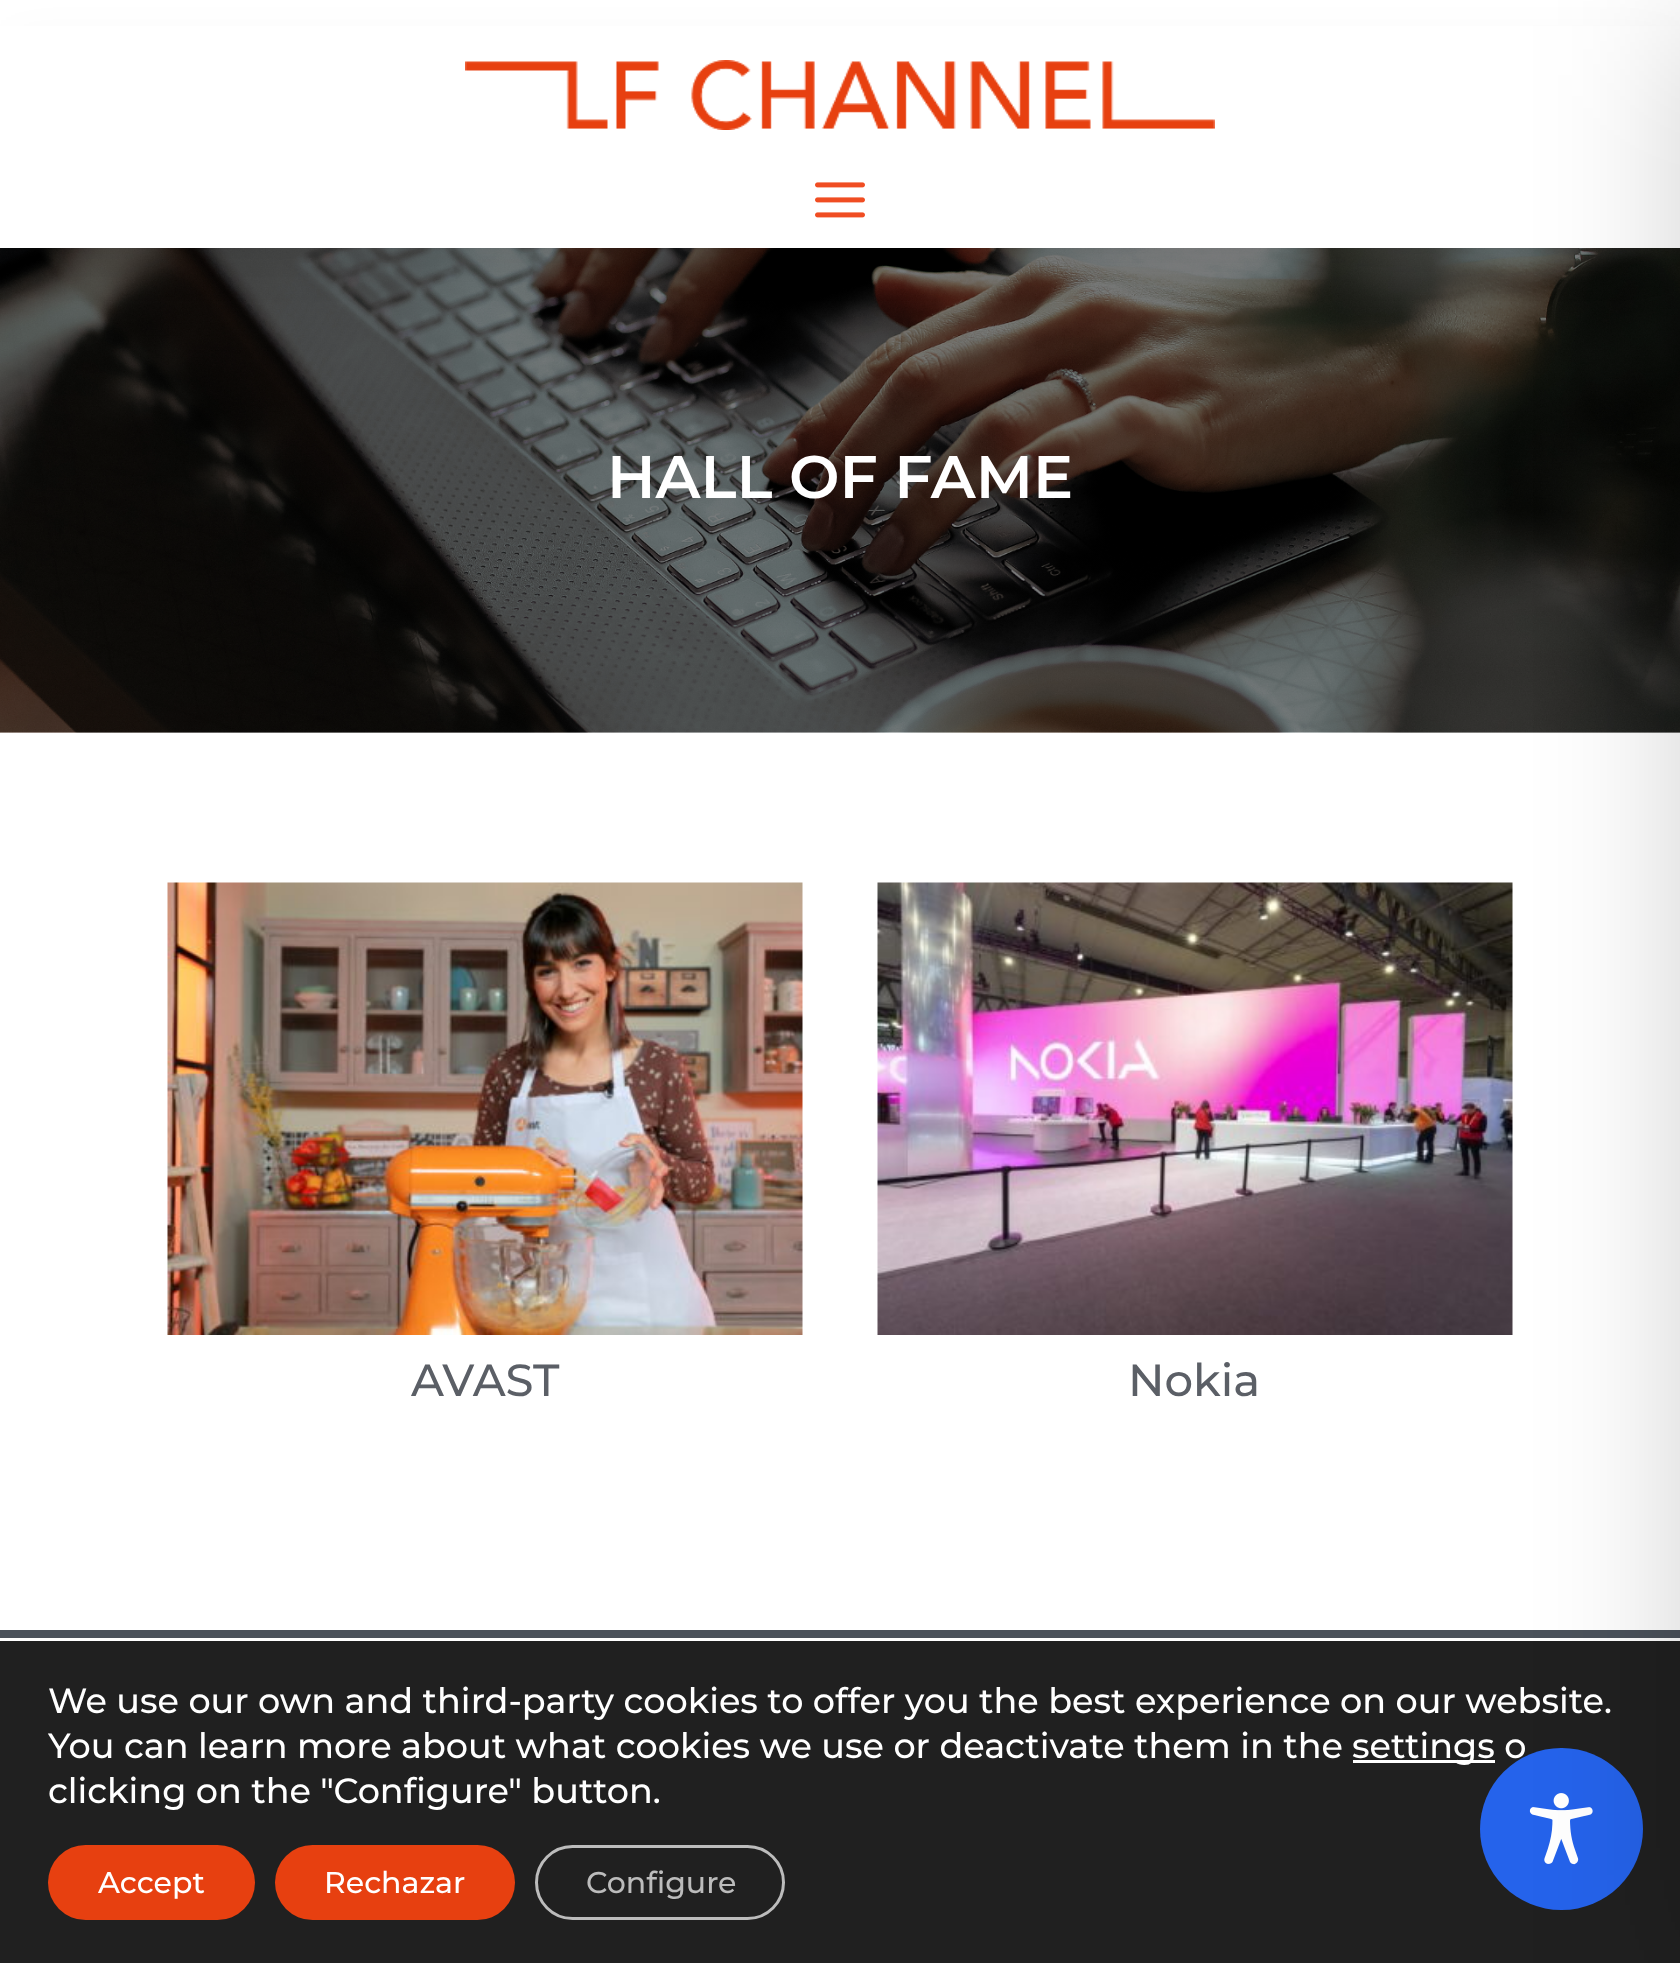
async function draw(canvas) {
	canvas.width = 1680;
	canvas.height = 1963;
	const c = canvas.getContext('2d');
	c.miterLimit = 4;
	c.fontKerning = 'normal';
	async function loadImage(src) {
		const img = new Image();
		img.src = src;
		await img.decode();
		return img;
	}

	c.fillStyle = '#fff';
	c.fillRect(0, 0, 1680, 1963);
	c.drawImage(await loadImage('img3.png'), 0, 248, 1680, 485);
	c.fillStyle = '#0000000d';
	c.filter = 'blur(22.5px)';
	c.beginPath();
	c.rect(15, 45, 1650, 218);
	c.fill();
	c.filter = 'none';
	c.fillStyle = '#fff';
	c.fillRect(0, 26, 1680, 222);
	c.drawImage(await loadImage('img1.png'), 465, 60, 750, 70);
	c.drawImage(await loadImage('img2.png'), 815, 182, 50, 36);
	c.font = '100 60px Montserrat';
	c.fillText('HALL OF FAME', 607, 498);
	c.drawImage(await loadImage('img4.png'), 167, 882, 636, 453);
	c.font = '100 45px "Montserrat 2"';
	c.fillStyle = '#5b5f66';
	c.fillText('AVAST', 411, 1396);
	c.drawImage(await loadImage('img5.png'), 877, 882, 636, 453);
	c.fillText('Nokia', 1128, 1396);
	for (const [x, y, w, h, color] of [
		[0, 1630, 1680, 8, '#4b525b'],
		[0, 1641, 1680, 322, '#202020'],
		[1353, 1760, 142, 3, '#fff'],
	]) {
		c.fillStyle = color;
		c.fillRect(x, y, w, h);
	}
	c.font = '100 35px "Montserrat 2"';
	c.fillText('settings o', 1352, 1758);
	c.fillStyle = '#2563eb';
	c.beginPath();
	c.roundRect(1480, 1748, 163, 162, 81);
	c.fill();
	c.drawImage(await loadImage('img6.png'), 1529, 1793, 64, 72);
	c.fillStyle = '#00000033';
	c.filter = 'blur(75px)';
	c.beginPath();
	c.rect(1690, 25, 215, 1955);
	c.fill();
	c.filter = 'none';
	c.fillStyle = '#fff';
	for (const [text, x, y] of [
		['We use our own and third-party cookies to offer you the best experience on our website.', 48, 1713],
		['You can learn more about what cookies we use or deactivate them in the', 48, 1758],
		['clicking on the "Configure" button.', 48, 1803],
	]) {
		c.fillText(text, x, y);
	}
	c.fillStyle = '#e74010';
	c.beginPath();
	c.roundRect(48, 1845, 207, 75, 37.5);
	c.fill();
	c.font = '100 30px "Montserrat 2"';
	c.fillStyle = '#fff';
	c.fillText('Accept', 98, 1893);
	c.fillStyle = '#e74010';
	c.beginPath();
	c.roundRect(275, 1845, 240, 75, 37.5);
	c.fill();
	c.fillStyle = '#fff';
	c.fillText('Rechazar', 324, 1893);
	c.beginPath();
	c.roundRect(536.5, 1846.5, 247, 72, 36);
	c.strokeStyle = '#bcbcbc';
	c.lineWidth = 3;
	c.stroke();
	c.fillStyle = '#bcbcbc';
	c.fillText('Configure', 586, 1893);
}

draw(document.querySelector('canvas'));
